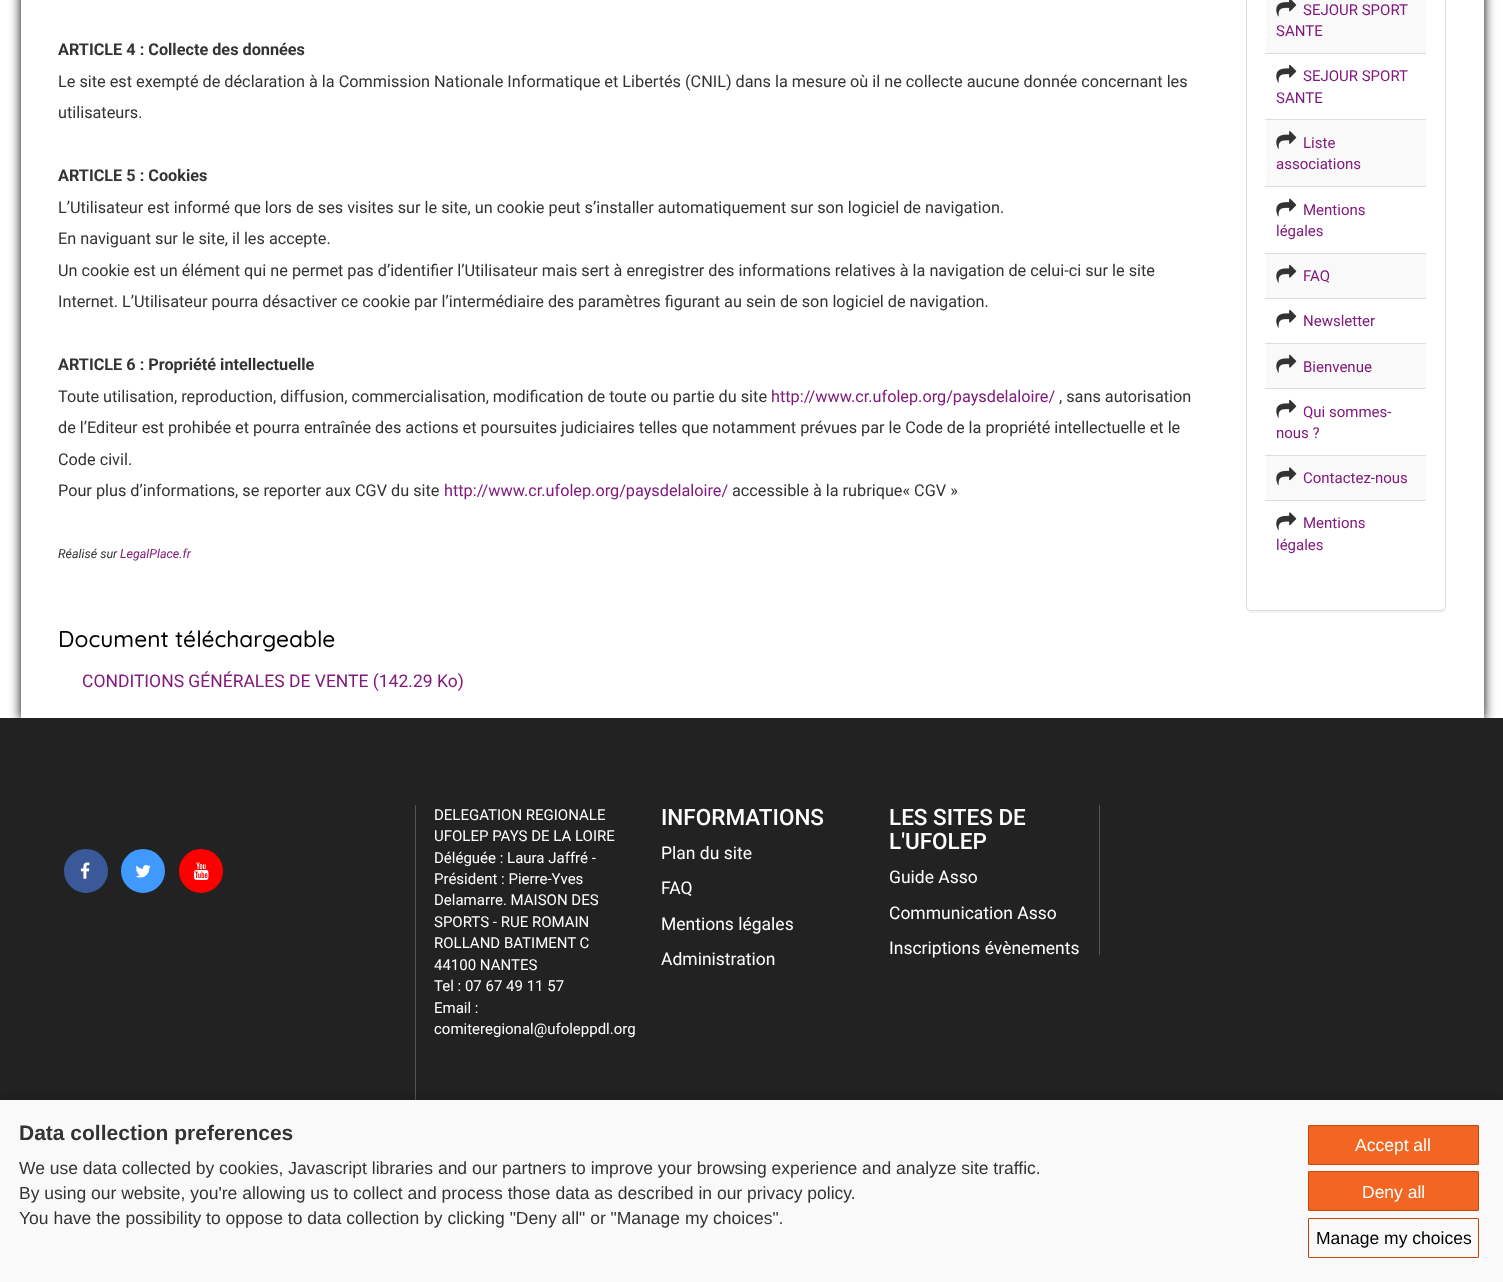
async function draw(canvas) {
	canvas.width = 1503;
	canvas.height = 1282;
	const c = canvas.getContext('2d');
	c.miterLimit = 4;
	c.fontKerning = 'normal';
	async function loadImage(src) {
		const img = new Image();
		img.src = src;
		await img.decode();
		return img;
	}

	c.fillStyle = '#fff';
	c.fillRect(0, 0, 1503, 1282);
	c.fillStyle = '#000';
	c.filter = 'blur(6px)';
	c.beginPath();
	c.rect(21, -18, 1463, 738);
	c.fill();
	c.filter = 'none';
	c.fillStyle = '#fff';
	c.fillRect(21, 0, 1463, 718);
	c.font = 'bold 16.25px Roboto';
	c.fillStyle = '#333';
	c.fillText('ARTICLE 4 : Collecte des données', 58, 55);
	c.font = '16.25px Roboto';
	c.fillText('Le site est exempté de déclaration à la Commission Nationale Informatique et Libertés (CNIL) dans la mesure où il ne collecte aucune donnée concernant les', 58, 87);
	c.fillText('utilisateurs.', 58, 118);
	c.font = 'bold 16.25px Roboto';
	c.fillText('ARTICLE 5 : Cookies', 58, 181);
	c.font = '16.25px Roboto';
	for (const [text, x, y] of [
		['L’Utilisateur est informé que lors de ses visites sur le site, un cookie peut s’installer automatiquement sur son logiciel de navigation.', 58, 213],
		['En naviguant sur le site, il les accepte.', 58, 244],
		['Un cookie est un élément qui ne permet pas d’identifier l’Utilisateur mais sert à enregistrer des informations relatives à la navigation de celui-ci sur le site', 58, 276],
		['Internet. L’Utilisateur pourra désactiver ce cookie par l’intermédiaire des paramètres figurant au sein de son logiciel de navigation.', 58, 307],
	]) {
		c.fillText(text, x, y);
	}
	c.font = 'bold 16.25px Roboto';
	c.fillText('ARTICLE 6 : Propriété intellectuelle', 58, 370);
	c.font = '16.25px Roboto';
	c.fillText('Toute utilisation, reproduction, diffusion, commercialisation, modification de toute ou partie du site', 58, 402);
	c.fillStyle = '#811a7b';
	c.fillText('http://www.cr.ufolep.org/paysdelaloire/', 771, 402);
	c.fillStyle = '#333';
	for (const [text, x, y] of [
		[', sans autorisation', 1059, 402],
		['de l’Editeur est prohibée et pourra entraînée des actions et poursuites judiciaires telles que notamment prévues par le Code de la propriété intellectuelle et le', 58, 433],
		['Code civil.', 58, 465],
		['Pour plus d’informations, se reporter aux CGV du site', 58, 496],
	]) {
		c.fillText(text, x, y);
	}
	c.fillStyle = '#811a7b';
	c.fillText('http://www.cr.ufolep.org/paysdelaloire/', 444, 496);
	c.fillStyle = '#333';
	c.fillText('accessible à la rubrique« CGV »', 732, 496);
	c.font = 'italic 12.5px Roboto';
	c.fillText('Réalisé sur', 58, 558);
	c.fillStyle = '#811a7b';
	c.fillText('LegalPlace.fr', 120, 558);
	c.font = '500 22.75px Quicksand';
	c.fillStyle = '#000';
	c.fillText('Document téléchargeable', 58, 647);
	c.font = '17.5px Roboto';
	c.fillStyle = '#811a7b';
	c.fillText('CONDITIONS GÉNÉRALES DE VENTE (142.29 Ko)', 82, 687);
	c.fillStyle = '#0000000d';
	c.filter = 'blur(0.5px)';
	c.beginPath();
	c.roundRect(1246, -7, 200, 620, 5);
	c.fill();
	c.filter = 'none';
	c.fillStyle = '#fff';
	c.beginPath();
	c.roundRect(1246.5, -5.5, 199, 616, 4.5);
	c.fill();
	c.strokeStyle = '#ddd';
	c.stroke();
	c.fillStyle = '#f9f9f9';
	c.fillRect(1266, 0, 160, 53);
	c.drawImage(await loadImage('img1.png'), 1276, 0, 21, 17);
	c.font = '15px Roboto';
	c.fillStyle = '#811a7b';
	c.fillText('SEJOUR SPORT', 1303, 15);
	c.fillText('SANTE', 1276, 36);
	c.fillStyle = '#ddd';
	c.fillRect(1265, 53, 161, 1);
	c.drawImage(await loadImage('img2.png'), 1276, 64, 21, 19);
	c.fillStyle = '#811a7b';
	c.fillText('SEJOUR SPORT', 1303, 81);
	c.fillText('SANTE', 1276, 103);
	c.fillStyle = '#f9f9f9';
	c.fillRect(1266, 120, 160, 66);
	c.fillStyle = '#ddd';
	c.fillRect(1265, 119, 161, 1);
	c.drawImage(await loadImage('img3.png'), 1276, 131, 21, 18);
	c.fillStyle = '#811a7b';
	c.fillText('Liste', 1303, 148);
	c.fillText('associations', 1276, 169);
	c.fillStyle = '#ddd';
	c.fillRect(1265, 186, 161, 1);
	c.drawImage(await loadImage('img4.png'), 1276, 198, 21, 19);
	c.fillStyle = '#811a7b';
	c.fillText('Mentions', 1303, 215);
	c.fillText('légales', 1276, 236);
	c.fillStyle = '#f9f9f9';
	c.fillRect(1266, 254, 160, 44);
	c.fillStyle = '#ddd';
	c.fillRect(1265, 253, 161, 1);
	c.drawImage(await loadImage('img5.png'), 1276, 264, 21, 19);
	c.fillStyle = '#811a7b';
	c.fillText('FAQ', 1303, 281);
	c.fillStyle = '#ddd';
	c.fillRect(1265, 298, 161, 1);
	c.drawImage(await loadImage('img2.png'), 1276, 309, 21, 19);
	c.fillStyle = '#811a7b';
	c.fillText('Newsletter', 1303, 326);
	c.fillStyle = '#f9f9f9';
	c.fillRect(1266, 344, 160, 44);
	c.fillStyle = '#ddd';
	c.fillRect(1265, 343, 161, 1);
	c.drawImage(await loadImage('img5.png'), 1276, 354, 21, 19);
	c.fillStyle = '#811a7b';
	c.fillText('Bienvenue', 1303, 372);
	c.fillStyle = '#ddd';
	c.fillRect(1265, 388, 161, 1);
	c.drawImage(await loadImage('img2.png'), 1276, 399, 21, 19);
	c.fillStyle = '#811a7b';
	c.fillText('Qui sommes-', 1303, 417);
	c.fillText('nous ?', 1276, 438);
	c.fillStyle = '#f9f9f9';
	c.fillRect(1266, 456, 160, 44);
	c.fillStyle = '#ddd';
	c.fillRect(1265, 455, 161, 1);
	c.drawImage(await loadImage('img6.png'), 1276, 467, 21, 19);
	c.fillStyle = '#811a7b';
	c.fillText('Contactez-nous', 1303, 483);
	c.fillStyle = '#ddd';
	c.fillRect(1265, 500, 161, 1);
	c.drawImage(await loadImage('img7.png'), 1276, 512, 21, 19);
	c.fillStyle = '#811a7b';
	c.fillText('Mentions', 1303, 528);
	c.fillText('légales', 1276, 550);
	c.fillStyle = '#222';
	c.fillRect(0, 718, 1503, 382);
	c.fillStyle = '#3b5998';
	c.beginPath();
	c.arc(86, 871, 20.5, 0, 2 * Math.PI);
	c.fill();
	c.strokeStyle = '#3b5998';
	c.lineWidth = 3;
	c.stroke();
	c.drawImage(await loadImage('img8.png'), 80, 862, 10, 17);
	c.fillStyle = '#4099ff';
	c.beginPath();
	c.arc(143, 871, 20.5, 0, 2 * Math.PI);
	c.fill();
	c.strokeStyle = '#4099ff';
	c.stroke();
	c.drawImage(await loadImage('img9.png'), 135, 865, 16, 13);
	c.fillStyle = '#f00';
	c.beginPath();
	c.arc(201, 871, 20.5, 0, 2 * Math.PI);
	c.fill();
	c.strokeStyle = '#f00';
	c.stroke();
	c.drawImage(await loadImage('img10.png'), 194, 862, 15, 18);
	c.fillStyle = '#545454';
	c.fillRect(415, 805, 1, 295);
	c.fillStyle = '#fff';
	for (const [text, x, y] of [
		['DELEGATION REGIONALE', 434, 820],
		['UFOLEP PAYS DE LA LOIRE', 434, 841],
		['Déléguée : Laura Jaffré -', 434, 863],
		['Président : Pierre-Yves', 434, 884],
		['Delamarre. MAISON DES', 434, 905],
		['SPORTS - RUE ROMAIN', 434, 927],
		['ROLLAND BATIMENT C', 434, 948],
		['44100 NANTES', 434, 970],
		['Tel : 07 67 49 11 57', 434, 991],
		['Email :', 434, 1013],
		['comiteregional@ufoleppdl.org', 434, 1034],
	]) {
		c.fillText(text, x, y);
	}
	c.font = '500 22.5px Roboto';
	c.fillText('INFORMATIONS', 661, 825);
	c.font = '17.5px Roboto';
	for (const [text, x, y] of [
		['Plan du site', 661, 859],
		['FAQ', 661, 894],
		['Mentions légales', 661, 930],
		['Administration', 661, 965],
	]) {
		c.fillText(text, x, y);
	}
	c.font = '500 22.5px Roboto';
	c.fillText('LES SITES DE', 889, 825);
	c.fillText('L\'UFOLEP', 889, 849);
	c.font = '17.5px Roboto';
	for (const [text, x, y] of [
		['Guide Asso', 889, 883],
		['Communication Asso', 889, 919],
		['Inscriptions évènements', 889, 954],
	]) {
		c.fillText(text, x, y);
	}
	c.fillStyle = '#545454';
	c.fillRect(1099, 805, 1, 150);
	c.fillStyle = '#00000024';
	c.filter = 'blur(3px)';
	c.beginPath();
	c.rect(-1, 1096, 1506, 185);
	c.fill();
	c.filter = 'none';
	c.fillStyle = '#f9f9f9';
	c.fillRect(0, 1100, 1503, 182);
	c.font = 'bold 21px Liberation Sans';
	c.fillStyle = '#333';
	c.fillText('Data collection preferences', 19, 1140);
	c.font = '17.5px Liberation Sans';
	for (const [text, x, y] of [
		['We use data collected by cookies, Javascript libraries and our partners to improve your browsing experience and analyze site traffic.', 19, 1174],
		['By using our website, you\'re allowing us to collect and process those data as described in our privacy policy.', 19, 1199],
		['You have the possibility to oppose to data collection by clicking "Deny all" or "Manage my choices".', 19, 1224],
	]) {
		c.fillText(text, x, y);
	}
	c.fillStyle = '#f26522';
	c.beginPath();
	c.roundRect(1308.5, 1125.5, 170, 39, 0.5);
	c.fill();
	c.strokeStyle = '#c3460b';
	c.lineWidth = 1;
	c.stroke();
	c.fillStyle = '#fff';
	c.fillText('Accept all', 1355, 1151);
	c.fillStyle = '#f26522';
	c.beginPath();
	c.roundRect(1308.5, 1171.5, 170, 39, 0.5);
	c.fill();
	c.stroke();
	c.fillStyle = '#fff';
	c.fillText('Deny all', 1362, 1198);
	c.beginPath();
	c.roundRect(1308.5, 1218.5, 170, 39, 0.5);
	c.stroke();
	c.fillStyle = '#000';
	c.fillText('Manage my choices', 1316, 1244);
}

draw(document.querySelector('canvas'));
